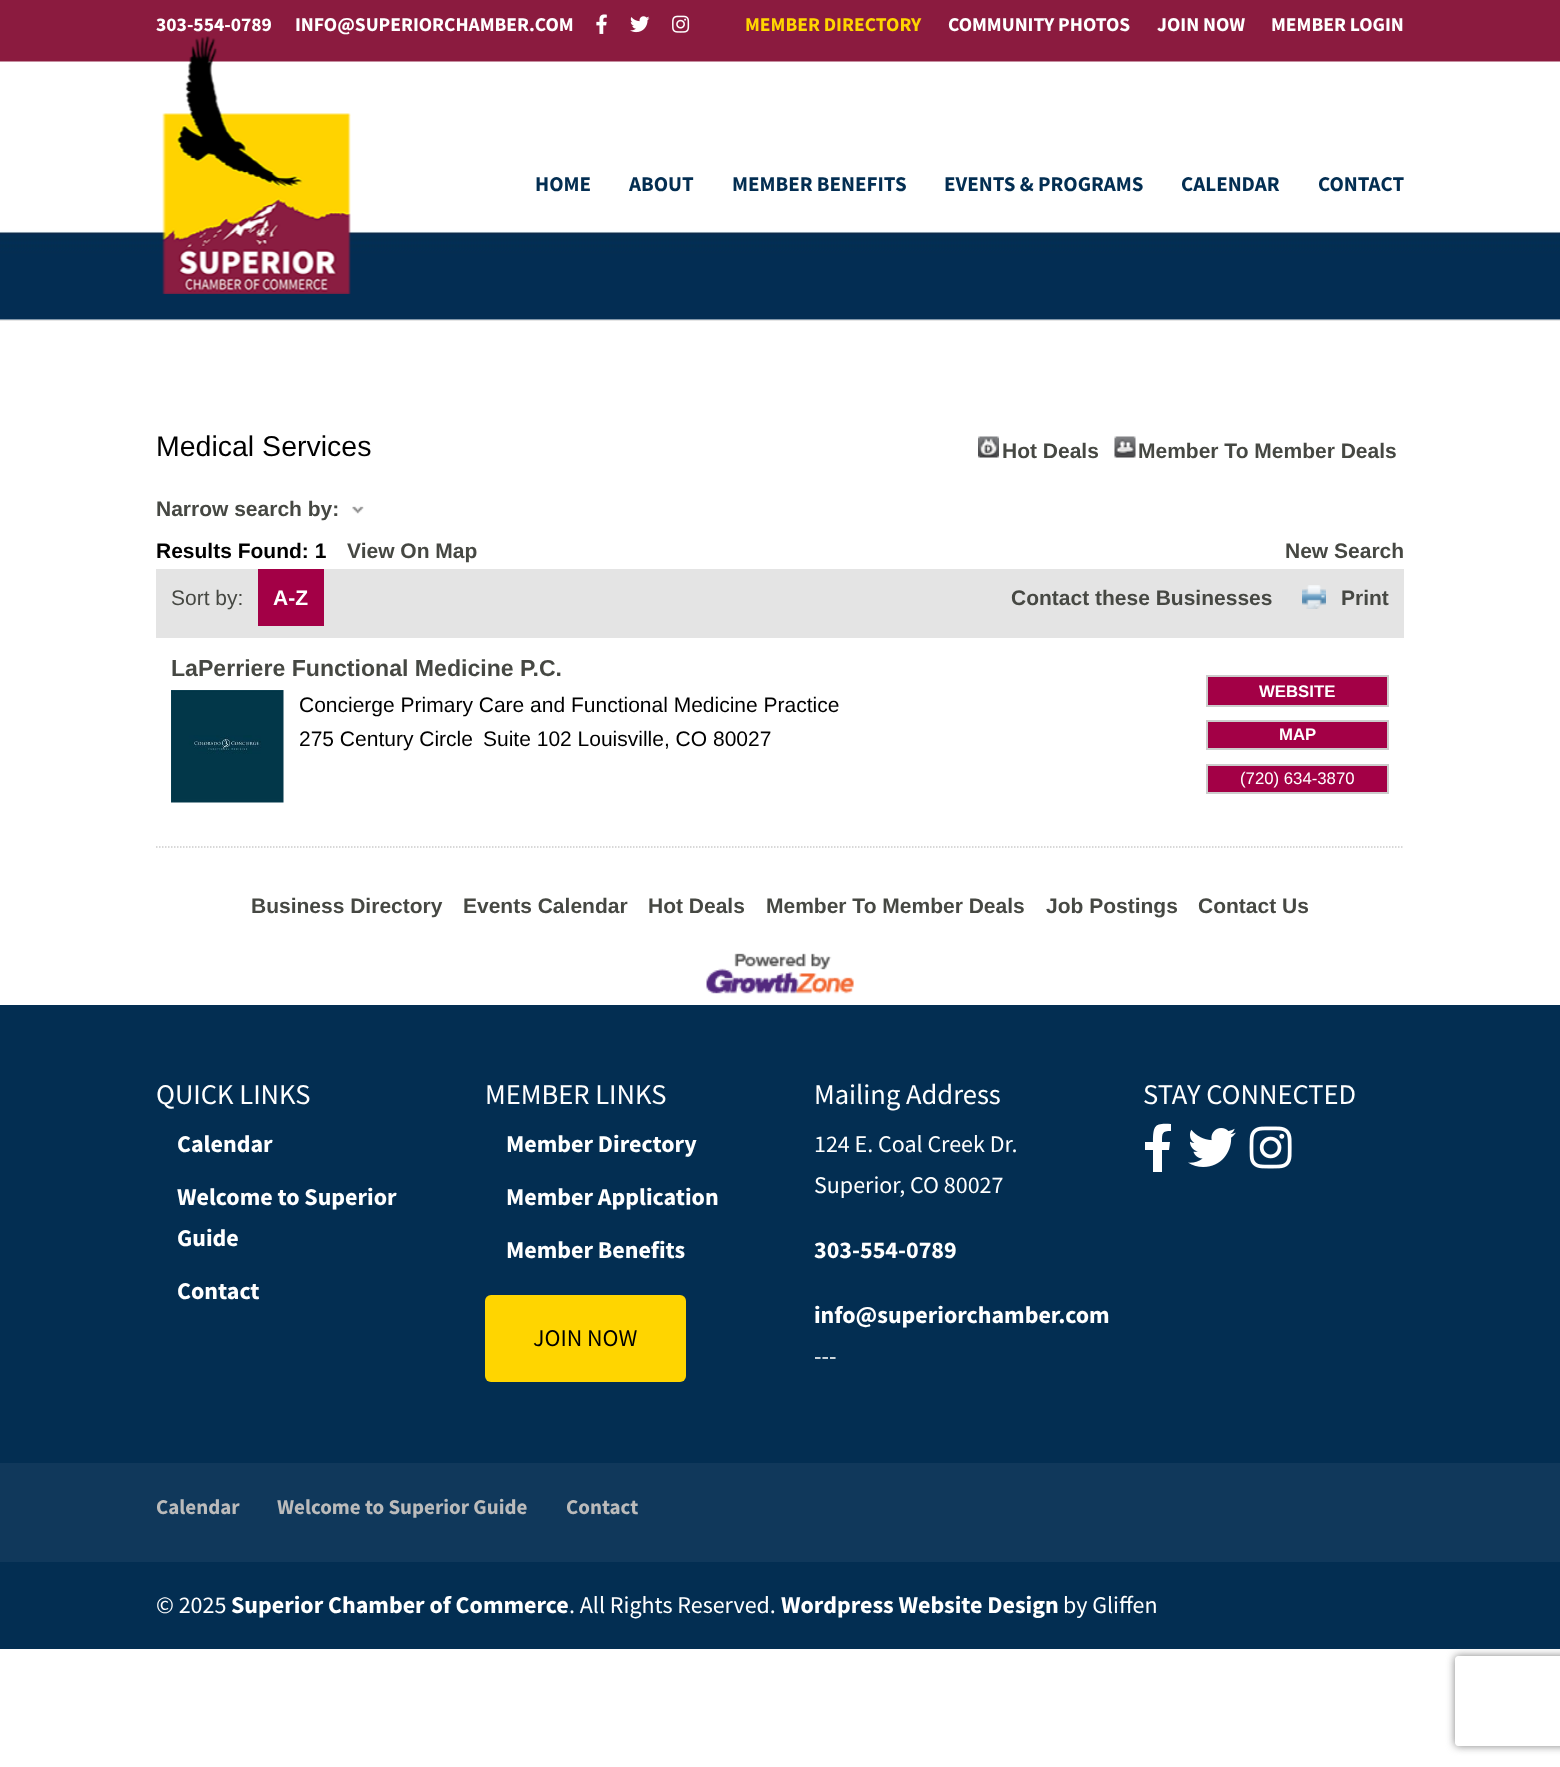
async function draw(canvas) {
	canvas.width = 1560;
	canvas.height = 1767;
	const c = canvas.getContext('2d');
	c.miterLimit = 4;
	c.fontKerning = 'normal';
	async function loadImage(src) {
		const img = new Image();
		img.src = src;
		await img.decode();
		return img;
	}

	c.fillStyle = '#fff';
	c.fillRect(0, 0, 1560, 1767);
	c.fillStyle = '#8b1b3f';
	c.fillRect(0, 0, 1560, 62);
	c.font = 'bold 19.5px Source Sans Pro';
	c.fillStyle = '#fff';
	c.fillText('303-554-0789', 156, 31);
	c.fillText('INFO@SUPERIORCHAMBER.COM', 295, 31);
	c.drawImage(await loadImage('img1.png'), 596, 14, 11, 20);
	c.drawImage(await loadImage('img2.png'), 630, 16, 20, 17);
	c.drawImage(await loadImage('img3.png'), 672, 15, 18, 18);
	c.fillStyle = '#ffd500';
	c.fillText('MEMBER DIRECTORY', 745, 31);
	c.fillStyle = '#fff';
	for (const [text, x, y] of [
		['COMMUNITY PHOTOS', 948, 31],
		['JOIN NOW', 1157, 31],
		['MEMBER LOGIN', 1271, 31],
	]) {
		c.fillText(text, x, y);
	}
	c.fillStyle = '#e6e6e6';
	c.fillRect(0, 320, 1560, 1);
	c.drawImage(await loadImage('img4.png'), 0, 61, 1560, 259);
	c.drawImage(await loadImage('img5.png'), 162, 36, 189, 258);
	c.font = 'bold 21px Source Sans Pro';
	c.fillStyle = '#032e52';
	for (const [text, x, y] of [
		['HOME', 535, 191],
		['ABOUT', 629, 191],
		['MEMBER BENEFITS', 732, 191],
		['EVENTS & PROGRAMS', 944, 191],
		['CALENDAR', 1181, 191],
		['CONTACT', 1318, 191],
	]) {
		c.fillText(text, x, y);
	}
	c.font = '28.5px Liberation Sans';
	c.fillStyle = '#000';
	c.fillText('Medical Services', 156, 456);
	c.drawImage(await loadImage('img6.png'), 978, 436, 21, 22);
	c.font = 'bold 21px Liberation Sans';
	c.fillStyle = '#464843';
	c.fillText('Hot Deals', 1002, 458);
	c.drawImage(await loadImage('img7.png'), 1114, 436, 22, 22);
	c.fillText('Member To Member Deals', 1138, 458);
	c.fillText('Narrow search by:', 156, 516);
	c.drawImage(await loadImage('img8.png'), 352, 506, 12, 8);
	c.fillStyle = '#000';
	c.fillText('Results Found: 1', 156, 558);
	c.fillStyle = '#464843';
	c.fillText('View On Map', 347, 558);
	c.fillText('New Search', 1285, 558);
	c.fillStyle = '#e4e4e4';
	c.fillRect(156, 569, 1248, 69);
	c.font = '21px Liberation Sans';
	c.fillStyle = '#464843';
	c.fillText('Sort by:', 171, 605);
	c.fillStyle = '#a30046';
	c.fillRect(258, 569, 66, 57);
	c.font = 'bold 21px Liberation Sans';
	c.fillStyle = '#fff';
	c.fillText('A-Z', 273, 605);
	c.fillStyle = '#464843';
	c.fillText('Contact these Businesses', 1011, 605);
	c.drawImage(await loadImage('img9.png'), 1302, 585, 24, 24);
	c.fillText('Print', 1341, 605);
	c.beginPath();
	c.moveTo(156, 847);
	c.lineTo(1404, 847);
	c.strokeStyle = '#ccc';
	c.lineWidth = 1.5;
	c.setLineDash([1.5, 1.5]);
	c.stroke();
	c.font = 'bold 23.1px Liberation Sans';
	c.fillText('LaPerriere Functional Medicine P.C.', 171, 676);
	c.drawImage(await loadImage('img10.png'), 171, 690, 113, 113);
	c.font = '21px Liberation Sans';
	c.fillStyle = '#000';
	for (const [text, x, y] of [
		['Concierge Primary Care and Functional Medicine Practice', 299, 712],
		['275 Century Circle', 299, 746],
		['Suite 102 Louisville, CO 80027', 483, 746],
	]) {
		c.fillText(text, x, y);
	}
	c.fillStyle = '#a30046';
	c.beginPath();
	c.rect(1207, 676, 181, 30);
	c.fill();
	c.lineWidth = 2;
	c.setLineDash([]);
	c.stroke();
	c.font = 'bold 16.75px Liberation Sans';
	c.fillStyle = '#fff';
	c.fillText('WEBSITE', 1259, 697);
	c.fillStyle = '#a30046';
	c.beginPath();
	c.rect(1207, 721, 181, 28);
	c.fill();
	c.stroke();
	c.fillStyle = '#fff';
	c.fillText('MAP', 1279, 740);
	c.fillStyle = '#a30046';
	c.beginPath();
	c.rect(1207, 765, 181, 28);
	c.fill();
	c.stroke();
	c.font = '16.75px Liberation Sans';
	c.fillStyle = '#fff';
	c.fillText('(720) 634-3870', 1240, 784);
	c.font = 'bold 21px Liberation Sans';
	c.fillStyle = '#464843';
	for (const [text, x, y] of [
		['Business Directory', 251, 913],
		['Events Calendar', 463, 913],
		['Hot Deals', 648, 913],
		['Member To Member Deals', 766, 913],
		['Job Postings', 1046, 913],
		['Contact Us', 1198, 913],
	]) {
		c.fillText(text, x, y);
	}
	c.drawImage(await loadImage('img11.png'), 706, 953, 148, 41);
	c.fillStyle = '#032e52';
	c.fillRect(0, 1005, 1560, 644);
	c.font = '28.5px Source Sans Pro';
	c.fillStyle = '#fff';
	c.fillText('QUICK LINKS', 156, 1104);
	c.font = 'bold 24px Source Sans Pro';
	for (const [text, x, y] of [
		['Calendar', 177, 1152],
		['Welcome to Superior', 177, 1205],
		['Guide', 177, 1246],
		['Contact', 177, 1299],
	]) {
		c.fillText(text, x, y);
	}
	c.font = '28.5px Source Sans Pro';
	c.fillText('MEMBER LINKS', 485, 1104);
	c.font = 'bold 24px Source Sans Pro';
	for (const [text, x, y] of [
		['Member Directory', 506, 1152],
		['Member Application', 506, 1205],
		['Member Benefits', 506, 1258],
	]) {
		c.fillText(text, x, y);
	}
	c.fillStyle = '#ffd500';
	c.beginPath();
	c.roundRect(485, 1295, 201, 87, 6);
	c.fill();
	c.font = '24px Source Sans Pro';
	c.fillStyle = '#000';
	c.fillText('JOIN NOW', 533, 1346);
	c.font = '28.5px Source Sans Pro';
	c.fillStyle = '#fff';
	c.fillText('Mailing Address', 814, 1104);
	c.font = '24px Source Sans Pro';
	c.fillText('124 E. Coal Creek Dr.', 814, 1152);
	c.fillText('Superior, CO 80027', 814, 1193);
	c.font = 'bold 24px Source Sans Pro';
	c.fillText('303-554-0789', 814, 1258);
	c.fillText('info@superiorchamber.com', 814, 1323);
	c.font = '24px Source Sans Pro';
	c.fillText('---', 814, 1364);
	c.font = '28.5px Source Sans Pro';
	c.fillText('STAY CONNECTED', 1143, 1104);
	c.beginPath();
	c.moveTo(1169, 1150);
	c.lineTo(1162, 1150);
	c.lineTo(1162, 1172);
	c.lineTo(1153, 1172);
	c.lineTo(1153, 1150);
	c.lineTo(1145, 1150);
	c.lineTo(1145, 1142);
	c.lineTo(1153, 1142);
	c.bezierCurveTo(1153, 1125, 1155, 1123, 1171, 1124);
	c.lineTo(1171, 1131);
	c.bezierCurveTo(1162, 1131, 1162, 1133, 1162, 1142);
	c.lineTo(1170, 1142);
	c.closePath();
	c.fill();
	c.drawImage(await loadImage('img12.png'), 1188, 1128, 48, 39);
	c.drawImage(await loadImage('img13.png'), 1249, 1126, 43, 43);
	c.fillStyle = '#10385b';
	c.fillRect(0, 1463, 1560, 99);
	c.font = 'bold 21px Source Sans Pro';
	c.fillStyle = '#bbb';
	for (const [text, x, y] of [
		['Calendar', 156, 1514],
		['Welcome to Superior Guide', 277, 1514],
		['Contact', 566, 1514],
	]) {
		c.fillText(text, x, y);
	}
	c.font = '24px Source Sans Pro';
	c.fillStyle = '#fff';
	c.fillText('© 2025', 156, 1613);
	c.font = 'bold 24px Source Sans Pro';
	c.fillText('Superior Chamber of Commerce', 231, 1613);
	c.font = '24px Source Sans Pro';
	c.fillText('. All Rights Reserved.', 569, 1613);
	c.font = 'bold 24px Source Sans Pro';
	c.fillText('Wordpress Website Design', 781, 1613);
	c.font = '24px Source Sans Pro';
	c.fillText('by Gliffen', 1063, 1613);
	c.save();
	c.beginPath();
	c.moveTo(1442, 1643);
	c.lineTo(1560, 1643);
	c.lineTo(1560, 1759);
	c.lineTo(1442, 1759);
	c.closePath();
	c.moveTo(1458, 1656);
	c.lineTo(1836, 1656);
	c.bezierCurveTo(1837.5, 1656, 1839, 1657.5, 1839, 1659);
	c.lineTo(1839, 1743);
	c.bezierCurveTo(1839, 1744.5, 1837.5, 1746, 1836, 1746);
	c.lineTo(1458, 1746);
	c.bezierCurveTo(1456.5, 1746, 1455, 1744.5, 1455, 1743);
	c.lineTo(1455, 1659);
	c.bezierCurveTo(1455, 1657.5, 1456.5, 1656, 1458, 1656);
	c.closePath();
	c.clip('evenodd');
	c.fillStyle = '#808080';
	c.filter = 'blur(4px)';
	c.beginPath();
	c.roundRect(1455, 1656, 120, 90, 3);
	c.fill();
	c.filter = 'none';
	c.restore();
}

draw(document.querySelector('canvas'));
